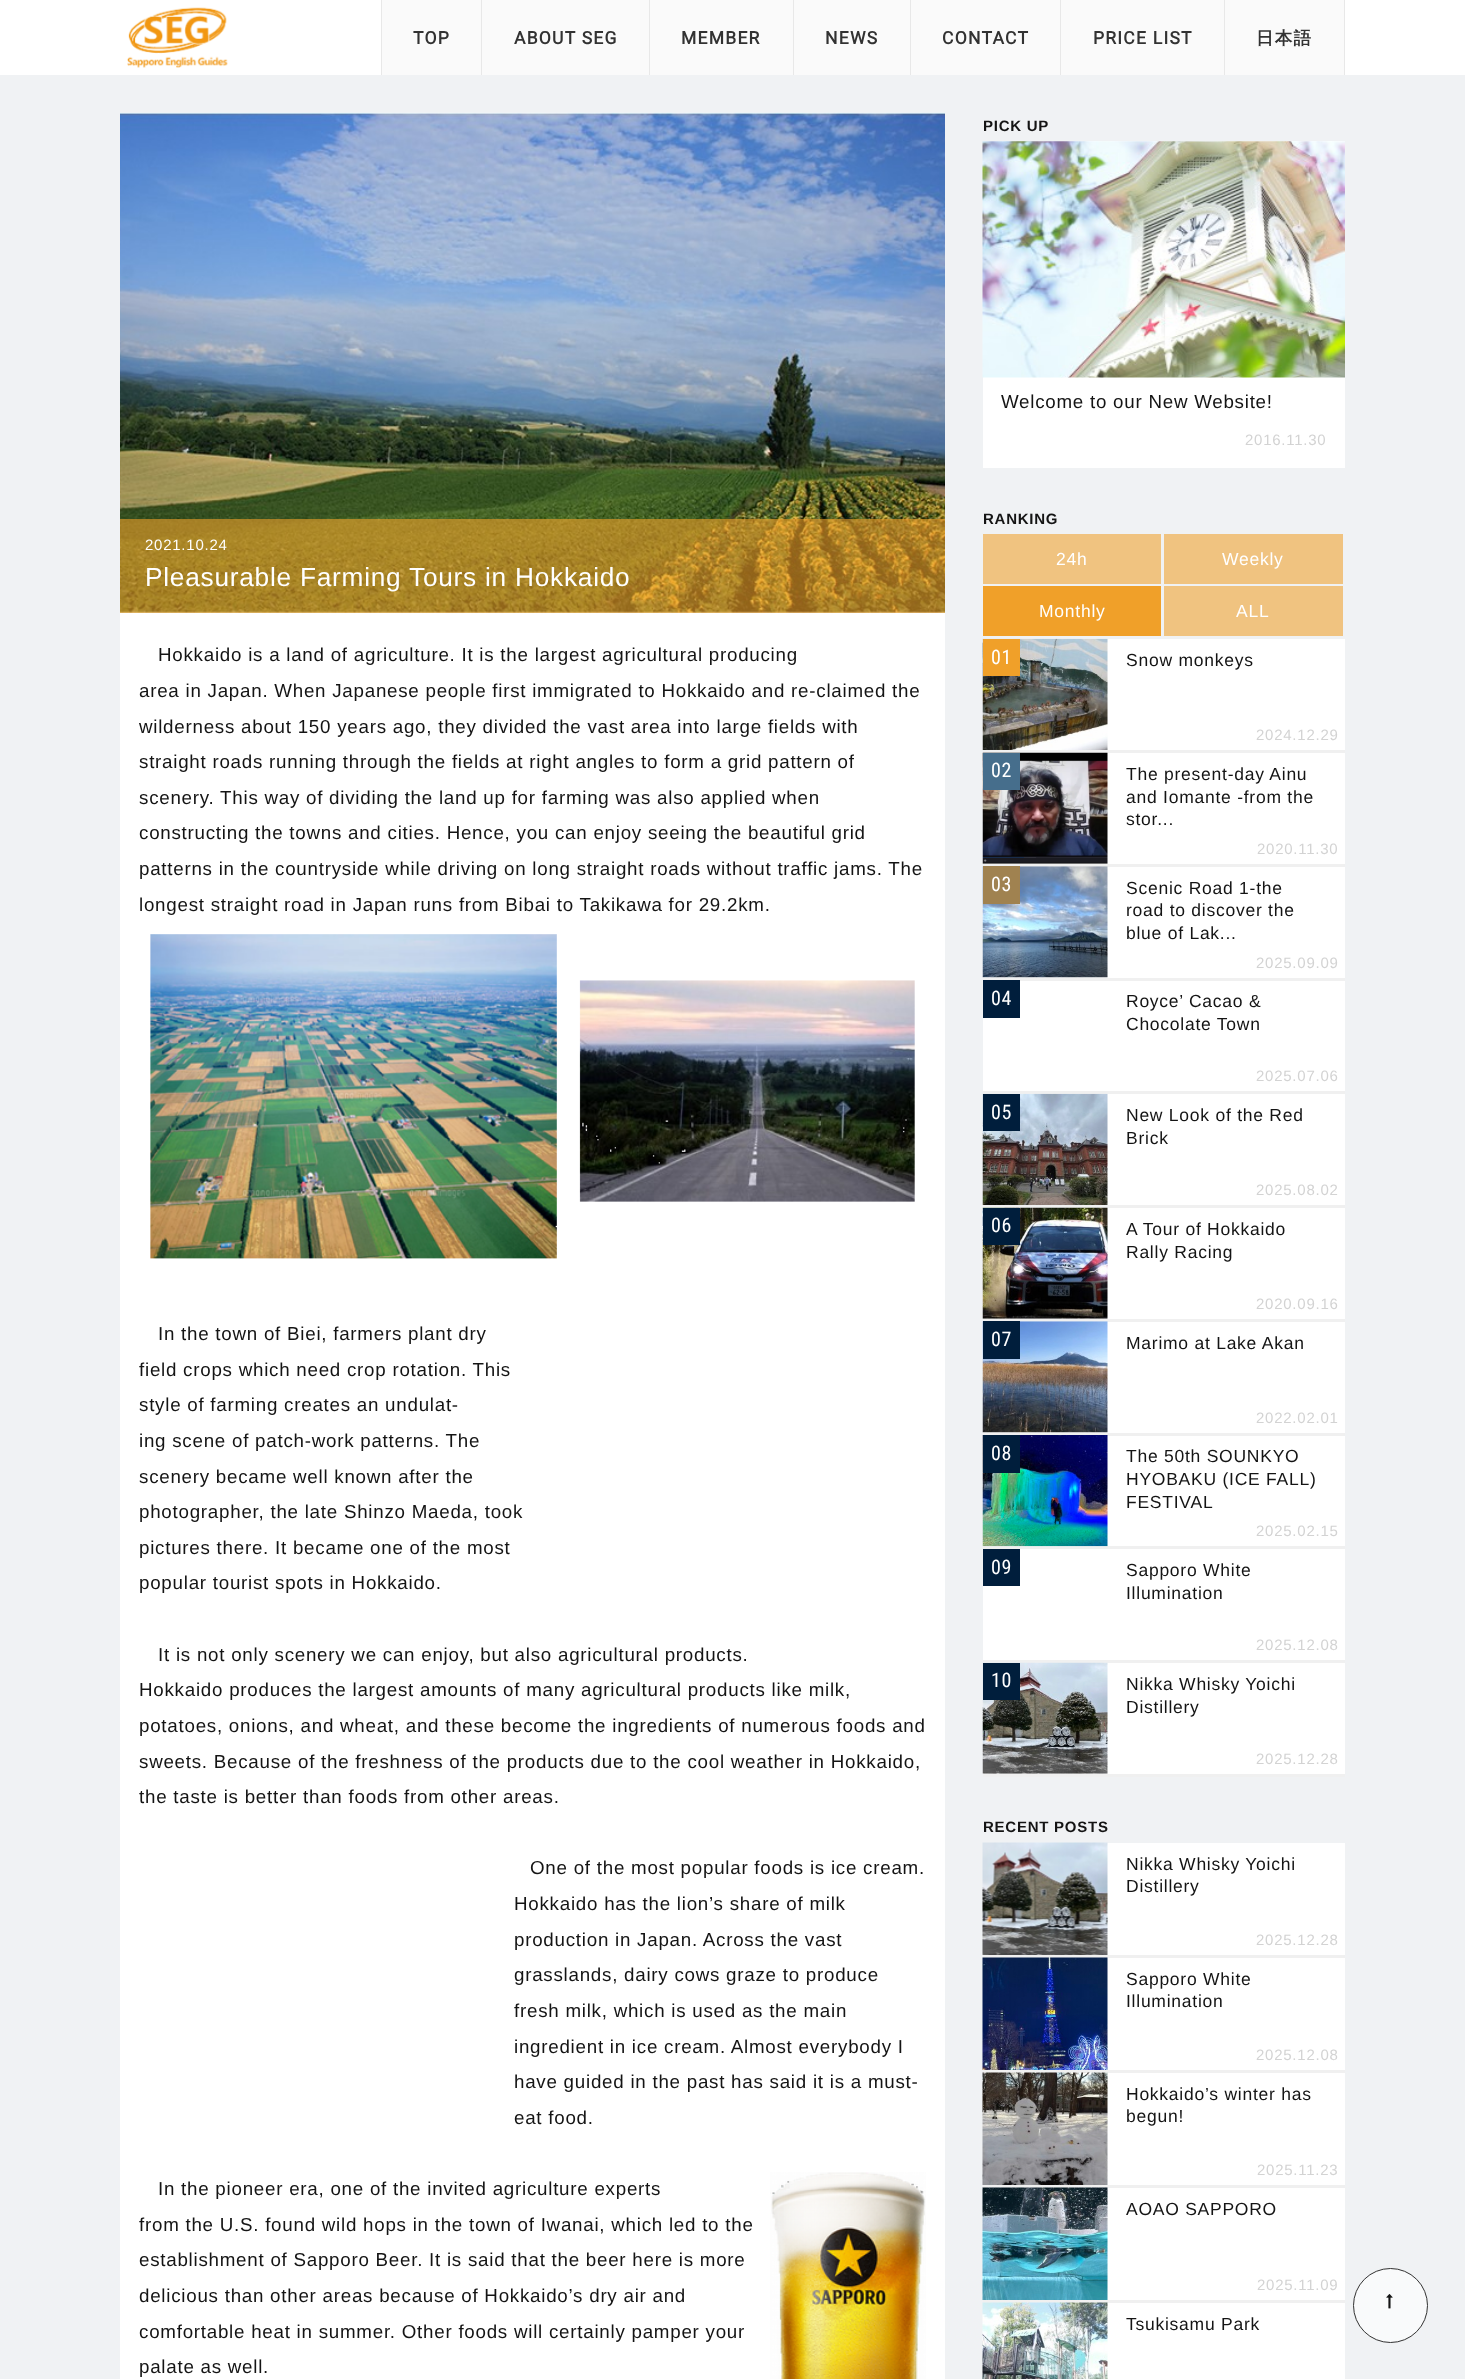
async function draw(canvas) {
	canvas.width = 1465;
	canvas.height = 2379;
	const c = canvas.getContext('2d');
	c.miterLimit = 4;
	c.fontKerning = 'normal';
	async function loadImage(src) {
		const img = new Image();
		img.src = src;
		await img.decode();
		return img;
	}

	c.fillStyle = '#f0f2f4';
	c.fillRect(0, 0, 1465, 2379);
	c.fillStyle = '#fff';
	c.fillRect(0, 0, 1465, 75);
	c.drawImage(await loadImage('img1.png'), 127, 7, 101, 61);
	for (const [x, y, w, h, color] of [
		[382, 0, 962, 75, '#fafafa'],
		[381, 0, 1, 75, '#e8e8e8'],
		[481, 0, 1, 75, '#e8e8e8'],
	]) {
		c.fillStyle = color;
		c.fillRect(x, y, w, h);
	}
	c.letterSpacing = '1.25px';
	c.font = 'bold 17.5px Roboto';
	c.fillStyle = '#323232';
	c.fillText('TOP', 413, 44);
	c.fillStyle = '#e8e8e8';
	c.fillRect(649, 0, 1, 75);
	c.fillStyle = '#323232';
	c.fillText('ABOUT SEG', 514, 44);
	c.fillStyle = '#e8e8e8';
	c.fillRect(793, 0, 1, 75);
	c.fillStyle = '#323232';
	c.fillText('MEMBER', 681, 44);
	c.fillStyle = '#e8e8e8';
	c.fillRect(910, 0, 1, 75);
	c.fillStyle = '#323232';
	c.fillText('NEWS', 825, 44);
	c.fillStyle = '#e8e8e8';
	c.fillRect(1060, 0, 1, 75);
	c.fillStyle = '#323232';
	c.fillText('CONTACT', 942, 44);
	c.fillStyle = '#e8e8e8';
	c.fillRect(1224, 0, 1, 75);
	c.fillStyle = '#323232';
	c.fillText('PRICE LIST', 1093, 44);
	c.fillStyle = '#e8e8e8';
	c.fillRect(1344, 0, 1, 75);
	c.font = 'bold 17.5px WenQuanYi Zen Hei';
	c.fillStyle = '#323232';
	c.fillText('日本語', 1256, 44);
	c.drawImage(await loadImage('img2.png'), 120, 112, 825, 501);
	c.fillStyle = '#f0a02999';
	c.fillRect(120, 519, 825, 94);
	c.letterSpacing = '0.75px';
	c.font = '15px Liberation Sans';
	c.fillStyle = '#fff';
	c.fillText('2021.10.24', 145, 550);
	c.font = '26.25px Liberation Sans';
	c.fillText('Pleasurable Farming Tours in Hokkaido', 145, 586);
	c.fillRect(120, 613, 825, 1766);
	c.font = '18.75px Liberation Sans';
	c.fillStyle = '#141414';
	for (const [text, x, y] of [
		['Hokkaido is a land of agriculture. It is the largest agricultural producing', 158, 661],
		['area in Japan. When Japanese people first immigrated to Hokkaido and re-claimed the', 139, 697],
		['wilderness about 150 years ago, they divided the vast area into large fields with', 139, 733],
		['straight roads running through the fields at right angles to form a grid pattern of', 139, 768],
		['scenery. This way of dividing the land up for farming was also applied when', 139, 804],
		['constructing the towns and cities. Hence, you can enjoy seeing the beautiful grid', 139, 839],
		['patterns in the countryside while driving on long straight roads without traffic jams. The', 139, 875],
		['longest straight road in Japan runs from Bibai to Takikawa for 29.2km.', 139, 911],
	]) {
		c.fillText(text, x, y);
	}
	c.drawImage(await loadImage('img3.png'), 150, 934, 765, 325);
	for (const [text, x, y] of [
		['In the town of Biei, farmers plant dry', 158, 1340],
		['field crops which need crop rotation. This', 139, 1376],
		['style of farming creates an undulat-', 139, 1411],
		['ing scene of patch-work patterns. The', 139, 1447],
		['scenery became well known after the', 139, 1483],
		['photographer, the late Shinzo Maeda, took', 139, 1518],
		['pictures there. It became one of the most', 139, 1554],
		['popular tourist spots in Hokkaido.', 139, 1589],
		['It is not only scenery we can enjoy, but also agricultural products.', 158, 1661],
		['Hokkaido produces the largest amounts of many agricultural products like milk,', 139, 1696],
		['potatoes, onions, and wheat, and these become the ingredients of numerous foods and', 139, 1732],
		['sweets. Because of the freshness of the products due to the cool weather in Hokkaido,', 139, 1768],
		['the taste is better than foods from other areas.', 139, 1803],
		['One of the most popular foods is ice cream.', 530, 1874],
		['Hokkaido has the lion’s share of milk', 514, 1910],
		['production in Japan. Across the vast', 514, 1946],
		['grasslands, dairy cows graze to produce', 514, 1981],
		['fresh milk, which is used as the main', 514, 2017],
		['ingredient in ice cream. Almost everybody I', 514, 2053],
		['have guided in the past has said it is a must-', 514, 2088],
		['eat food.', 514, 2124],
		['In the pioneer era, one of the invited agriculture experts', 158, 2195],
	]) {
		c.fillText(text, x, y);
	}
	c.drawImage(await loadImage('img4.png'), 770, 2172, 156, 207);
	for (const [text, x, y] of [
		['from the U.S. found wild hops in the town of Iwanai, which led to the', 139, 2231],
		['establishment of Sapporo Beer. It is said that the beer here is more', 139, 2266],
		['delicious than other areas because of Hokkaido’s dry air and', 139, 2302],
		['comfortable heat in summer. Other foods will certainly pamper your', 139, 2338],
		['palate as well.', 139, 2373],
	]) {
		c.fillText(text, x, y);
	}
	c.font = 'bold 15px Liberation Sans';
	c.fillText('PICK UP', 983, 131);
	c.fillStyle = '#fff';
	c.fillRect(983, 141, 362, 327);
	c.drawImage(await loadImage('img5.png'), 982, 141, 363, 237);
	c.font = '18.75px Liberation Sans';
	c.fillStyle = '#141414';
	c.fillText('Welcome to our New Website!', 1001, 408);
	c.font = '15px Liberation Sans';
	c.fillStyle = '#d3d3d3';
	c.fillText('2016.11.30', 1245, 445);
	c.font = 'bold 15px Liberation Sans';
	c.fillStyle = '#141414';
	c.fillText('RANKING', 983, 524);
	c.fillStyle = '#f0c380';
	c.fillRect(983, 534, 178, 50);
	c.font = '17.5px Liberation Sans';
	c.fillStyle = '#fff';
	c.fillText('24h', 1056, 565);
	c.fillStyle = '#f0c380';
	c.fillRect(1164, 534, 179, 50);
	c.fillStyle = '#fff';
	c.fillText('Weekly', 1222, 565);
	c.fillStyle = '#f0a029';
	c.fillRect(983, 586, 178, 50);
	c.fillStyle = '#fff';
	c.fillText('Monthly', 1039, 617);
	c.fillStyle = '#f0c380';
	c.fillRect(1164, 586, 179, 50);
	c.fillStyle = '#fff';
	c.fillText('ALL', 1236, 617);
	c.fillRect(983, 639, 362, 1135);
	c.fillStyle = '#f0f0f0';
	c.fillRect(983, 750, 362, 3);
	c.drawImage(await loadImage('img6.png'), 982, 638, 126, 112);
	c.fillStyle = '#f0a029';
	c.fillRect(983, 639, 37, 37);
	c.font = '20px Roboto Condensed';
	c.fillStyle = '#fff';
	c.fillText('01', 991, 664);
	c.font = '17.5px Liberation Sans';
	c.fillStyle = '#141414';
	c.fillText('Snow monkeys', 1126, 666);
	c.font = '15px Liberation Sans';
	c.fillStyle = '#d3d3d3';
	c.fillText('2024.12.29', 1256, 740);
	c.fillStyle = '#f0f0f0';
	c.fillRect(983, 864, 362, 3);
	c.drawImage(await loadImage('img7.png'), 982, 752, 126, 112);
	c.fillStyle = '#466e8c';
	c.fillRect(983, 753, 37, 37);
	c.font = '20px Roboto Condensed';
	c.fillStyle = '#fff';
	c.fillText('02', 991, 777);
	c.font = '17.5px Liberation Sans';
	c.fillStyle = '#141414';
	for (const [text, x, y] of [
		['The present-day Ainu', 1126, 780],
		['and Iomante -from the', 1126, 803],
		['stor...', 1126, 825],
	]) {
		c.fillText(text, x, y);
	}
	c.font = '15px Liberation Sans';
	c.fillStyle = '#d3d3d3';
	c.fillText('2020.11.30', 1257, 854);
	c.fillStyle = '#f0f0f0';
	c.fillRect(983, 978, 362, 3);
	c.drawImage(await loadImage('img8.png'), 982, 866, 126, 112);
	c.fillStyle = '#a08250';
	c.fillRect(983, 866, 37, 38);
	c.font = '20px Roboto Condensed';
	c.fillStyle = '#fff';
	c.fillText('03', 991, 891);
	c.font = '17.5px Liberation Sans';
	c.fillStyle = '#141414';
	for (const [text, x, y] of [
		['Scenic Road 1-the', 1126, 894],
		['road to discover the', 1126, 916],
		['blue of Lak...', 1126, 939],
	]) {
		c.fillText(text, x, y);
	}
	c.font = '15px Liberation Sans';
	c.fillStyle = '#d3d3d3';
	c.fillText('2025.09.09', 1256, 968);
	c.fillStyle = '#f0f0f0';
	c.fillRect(983, 1091, 362, 3);
	c.fillStyle = '#001e3c';
	c.fillRect(983, 980, 37, 38);
	c.font = '20px Roboto Condensed';
	c.fillStyle = '#fff';
	c.fillText('04', 991, 1005);
	c.font = '17.5px Liberation Sans';
	c.fillStyle = '#141414';
	c.fillText('Royce’ Cacao &', 1126, 1007);
	c.fillText('Chocolate Town', 1126, 1030);
	c.font = '15px Liberation Sans';
	c.fillStyle = '#d3d3d3';
	c.fillText('2025.07.06', 1256, 1081);
	c.fillStyle = '#f0f0f0';
	c.fillRect(983, 1205, 362, 3);
	c.drawImage(await loadImage('img9.png'), 982, 1093, 126, 112);
	c.fillStyle = '#001e3c';
	c.fillRect(983, 1094, 37, 37);
	c.font = '20px Roboto Condensed';
	c.fillStyle = '#fff';
	c.fillText('05', 991, 1119);
	c.font = '17.5px Liberation Sans';
	c.fillStyle = '#141414';
	c.fillText('New Look of the Red', 1126, 1121);
	c.fillText('Brick', 1126, 1144);
	c.font = '15px Liberation Sans';
	c.fillStyle = '#d3d3d3';
	c.fillText('2025.08.02', 1256, 1195);
	c.fillStyle = '#f0f0f0';
	c.fillRect(983, 1319, 362, 3);
	c.drawImage(await loadImage('img10.png'), 982, 1207, 126, 112);
	c.fillStyle = '#001e3c';
	c.fillRect(983, 1208, 37, 37);
	c.font = '20px Roboto Condensed';
	c.fillStyle = '#fff';
	c.fillText('06', 991, 1232);
	c.font = '17.5px Liberation Sans';
	c.fillStyle = '#141414';
	c.fillText('A Tour of Hokkaido', 1126, 1235);
	c.fillText('Rally Racing', 1126, 1258);
	c.font = '15px Liberation Sans';
	c.fillStyle = '#d3d3d3';
	c.fillText('2020.09.16', 1256, 1309);
	c.fillStyle = '#f0f0f0';
	c.fillRect(983, 1433, 362, 3);
	c.drawImage(await loadImage('img11.png'), 982, 1321, 126, 112);
	c.fillStyle = '#001e3c';
	c.fillRect(983, 1321, 37, 38);
	c.font = '20px Roboto Condensed';
	c.fillStyle = '#fff';
	c.fillText('07', 991, 1346);
	c.font = '17.5px Liberation Sans';
	c.fillStyle = '#141414';
	c.fillText('Marimo at Lake Akan', 1126, 1349);
	c.font = '15px Liberation Sans';
	c.fillStyle = '#d3d3d3';
	c.fillText('2022.02.01', 1256, 1423);
	c.fillStyle = '#f0f0f0';
	c.fillRect(983, 1546, 362, 3);
	c.drawImage(await loadImage('img12.png'), 982, 1435, 126, 112);
	c.fillStyle = '#001e3c';
	c.fillRect(983, 1435, 37, 38);
	c.font = '20px Roboto Condensed';
	c.fillStyle = '#fff';
	c.fillText('08', 991, 1460);
	c.font = '17.5px Liberation Sans';
	c.fillStyle = '#141414';
	for (const [text, x, y] of [
		['The 50th SOUNKYO', 1126, 1462],
		['HYOBAKU (ICE FALL)', 1126, 1485],
		['FESTIVAL', 1126, 1508],
	]) {
		c.fillText(text, x, y);
	}
	c.font = '15px Liberation Sans';
	c.fillStyle = '#d3d3d3';
	c.fillText('2025.02.15', 1256, 1536);
	c.fillStyle = '#f0f0f0';
	c.fillRect(983, 1660, 362, 3);
	c.fillStyle = '#001e3c';
	c.fillRect(983, 1549, 37, 37);
	c.font = '20px Roboto Condensed';
	c.fillStyle = '#fff';
	c.fillText('09', 991, 1574);
	c.font = '17.5px Liberation Sans';
	c.fillStyle = '#141414';
	c.fillText('Sapporo White', 1126, 1576);
	c.fillText('Illumination', 1126, 1599);
	c.font = '15px Liberation Sans';
	c.fillStyle = '#d3d3d3';
	c.fillText('2025.12.08', 1256, 1650);
	c.fillStyle = '#f0f0f0';
	c.fillRect(983, 1774, 362, 3);
	c.drawImage(await loadImage('img13.png'), 982, 1662, 126, 112);
	c.fillStyle = '#001e3c';
	c.fillRect(983, 1663, 37, 37);
	c.font = '20px Roboto Condensed';
	c.fillStyle = '#fff';
	c.fillText('10', 991, 1687);
	c.font = '17.5px Liberation Sans';
	c.fillStyle = '#141414';
	c.fillText('Nikka Whisky Yoichi', 1126, 1690);
	c.fillText('Distillery', 1126, 1713);
	c.font = '15px Liberation Sans';
	c.fillStyle = '#d3d3d3';
	c.fillText('2025.12.28', 1256, 1764);
	c.font = 'bold 15px Liberation Sans';
	c.fillStyle = '#141414';
	c.fillText('RECENT POSTS', 983, 1832);
	c.fillStyle = '#fff';
	c.fillRect(1107, 1843, 238, 112);
	c.fillStyle = '#f0f0f0';
	c.fillRect(983, 1955, 362, 3);
	c.drawImage(await loadImage('img14.png'), 982, 1842, 126, 113);
	c.font = '17.5px Liberation Sans';
	c.fillStyle = '#141414';
	c.fillText('Nikka Whisky Yoichi', 1126, 1870);
	c.fillText('Distillery', 1126, 1892);
	c.font = '15px Liberation Sans';
	c.fillStyle = '#d3d3d3';
	c.fillText('2025.12.28', 1256, 1945);
	c.fillStyle = '#fff';
	c.fillRect(1107, 1958, 238, 112);
	c.fillStyle = '#f0f0f0';
	c.fillRect(983, 2070, 362, 3);
	c.drawImage(await loadImage('img15.png'), 982, 1957, 126, 113);
	c.font = '17.5px Liberation Sans';
	c.fillStyle = '#141414';
	c.fillText('Sapporo White', 1126, 1985);
	c.fillText('Illumination', 1126, 2007);
	c.font = '15px Liberation Sans';
	c.fillStyle = '#d3d3d3';
	c.fillText('2025.12.08', 1256, 2060);
	c.fillStyle = '#fff';
	c.fillRect(1107, 2073, 238, 112);
	c.fillStyle = '#f0f0f0';
	c.fillRect(983, 2185, 362, 3);
	c.drawImage(await loadImage('img16.png'), 982, 2072, 126, 113);
	c.font = '17.5px Liberation Sans';
	c.fillStyle = '#141414';
	c.fillText('Hokkaido’s winter has', 1126, 2100);
	c.fillText('begun!', 1126, 2122);
	c.font = '15px Liberation Sans';
	c.fillStyle = '#d3d3d3';
	c.fillText('2025.11.23', 1257, 2175);
	c.fillStyle = '#fff';
	c.fillRect(1107, 2188, 238, 112);
	c.fillStyle = '#f0f0f0';
	c.fillRect(983, 2300, 362, 3);
	c.drawImage(await loadImage('img17.png'), 982, 2187, 126, 113);
	c.font = '17.5px Liberation Sans';
	c.fillStyle = '#141414';
	c.fillText('AOAO SAPPORO', 1126, 2215);
	c.font = '15px Liberation Sans';
	c.fillStyle = '#d3d3d3';
	c.fillText('2025.11.09', 1257, 2290);
	c.fillStyle = '#fff';
	c.fillRect(1107, 2303, 238, 76);
	c.drawImage(await loadImage('img18.png'), 982, 2302, 126, 77);
	c.font = '17.5px Liberation Sans';
	c.fillStyle = '#141414';
	c.fillText('Tsukisamu Park', 1126, 2330);
	c.fillStyle = '#f9fafb';
	c.beginPath();
	c.arc(1390.5, 2305.5, 37, 0, 2 * Math.PI);
	c.fill();
	c.strokeStyle = '#323232';
	c.stroke();
	c.drawImage(await loadImage('img19.png'), 1386, 2294, 7, 15);
}

draw(document.querySelector('canvas'));
